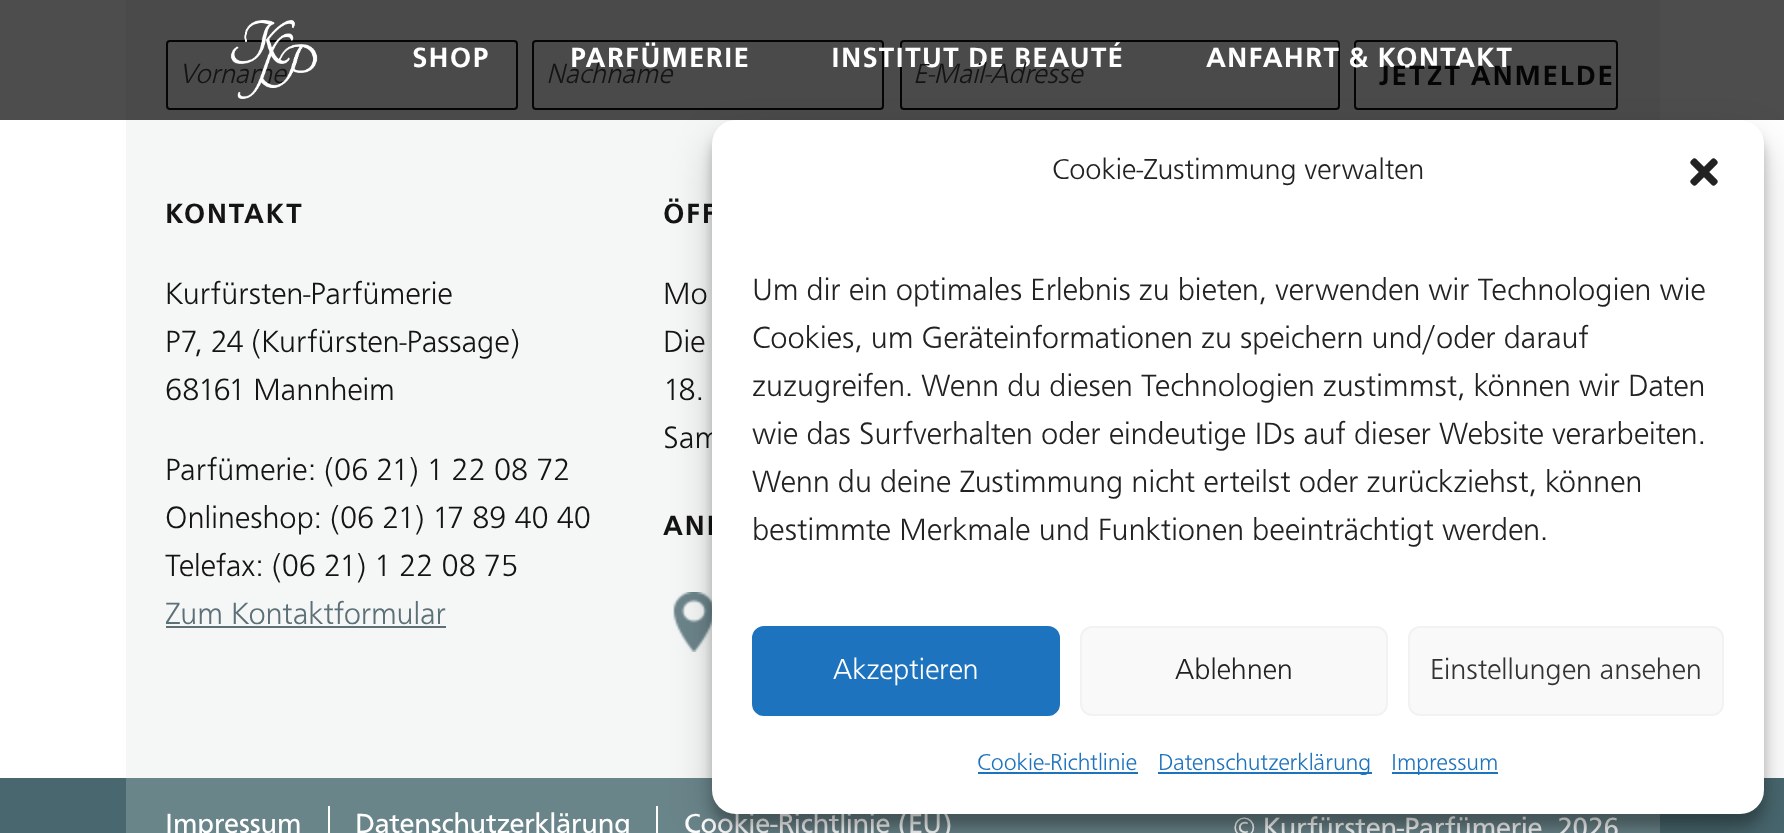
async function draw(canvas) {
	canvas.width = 1784;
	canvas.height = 833;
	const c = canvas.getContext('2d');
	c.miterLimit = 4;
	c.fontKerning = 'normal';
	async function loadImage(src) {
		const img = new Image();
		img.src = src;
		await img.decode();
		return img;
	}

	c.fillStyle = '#fff';
	c.fillRect(0, 0, 1784, 833);
	c.fillStyle = '#4d4d4d';
	c.fillRect(0, 0, 1784, 120);
	c.fillStyle = '#4a4a4a';
	c.fillRect(126, 0, 1534, 120);
	c.beginPath();
	c.roundRect(167, 41, 350, 68, 3);
	c.strokeStyle = '#050505';
	c.lineWidth = 2;
	c.stroke();
	c.font = 'italic 300 28.75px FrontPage';
	c.fillStyle = '#141414';
	c.fillText('Vorname', 179, 83);
	c.drawImage(await loadImage('img1.png'), 230, 20, 88, 79);
	c.letterSpacing = '1.1px';
	c.font = '500 28.75px FrontPage';
	c.fillStyle = '#fff';
	c.fillText('SHOP', 412, 67);
	c.beginPath();
	c.roundRect(533, 41, 350, 68, 3);
	c.stroke();
	c.fillText('PARFÜMERIE', 570, 67);
	c.beginPath();
	c.roundRect(901, 41, 438, 68, 3);
	c.stroke();
	c.fillText('INSTITUT DE BEAUTÉ', 831, 67);
	c.beginPath();
	c.roundRect(1355, 41, 262, 68, 3);
	c.stroke();
	c.fillText('ANFAHRT & KONTAKT', 1206, 67);
	c.fillStyle = '#f5f7f7';
	c.fillRect(126, 120, 610, 24);
	c.letterSpacing = '0px';
	c.font = 'italic 300 28.75px FrontPage';
	c.fillStyle = '#141414';
	c.fillText('Nachname', 546, 83);
	c.fillText('E-Mail-Adresse', 913, 83);
	c.letterSpacing = '1.75px';
	c.font = '500 28.75px FrontPage';
	c.fillStyle = '#050505';
	c.fillText('JETZT ANMELDE', 1379, 85);
	c.fillStyle = '#f5f7f7';
	c.fillRect(126, 144, 586, 634);
	c.letterSpacing = '1.5px';
	c.fillStyle = '#141414';
	c.fillText('KONTAKT', 165, 223);
	c.letterSpacing = '0px';
	c.font = '300 32px FrontPage';
	for (const [text, x, y] of [
		['Kurfürsten-Parfümerie', 165, 304],
		['P7, 24 (Kurfürsten-Passage)', 165, 352],
		['68161 Mannheim', 165, 400],
		['Parfümerie: (06 21) 1 22 08 72', 165, 480],
		['Onlineshop: (06 21) 17 89 40 40', 165, 528],
		['Telefax: (06 21) 1 22 08 75', 165, 576],
	]) {
		c.fillText(text, x, y);
	}
	c.fillStyle = '#5d7077';
	c.fillText('Zum Kontaktformular', 165, 624);
	c.fillRect(166, 626, 280, 2);
	c.letterSpacing = '1.5px';
	c.font = '500 28.75px FrontPage';
	c.fillStyle = '#141414';
	c.fillText('ÖFF', 663, 223);
	c.letterSpacing = '0px';
	c.font = '300 32px FrontPage';
	for (const [text, x, y] of [
		['Mo', 663, 304],
		['Die', 663, 352],
		['18.', 663, 400],
		['Sam', 663, 448],
	]) {
		c.fillText(text, x, y);
	}
	c.letterSpacing = '1.5px';
	c.font = '500 28.75px FrontPage';
	c.fillText('ANF', 663, 535);
	c.drawImage(await loadImage('img2.png'), 673, 592, 39, 60);
	for (const [x, y, w, h, color] of [
		[0, 778, 1784, 55, '#48676e'],
		[126, 778, 1534, 55, '#6a858a'],
		[328, 806, 2, 27, '#fff'],
	]) {
		c.fillStyle = color;
		c.fillRect(x, y, w, h);
	}
	c.letterSpacing = '0px';
	c.font = '28.75px FrontPage';
	c.fillText('Impressum', 165, 833);
	c.fillRect(656, 806, 2, 27);
	for (const [text, x, y] of [
		['Datenschutzerklärung', 355, 833],
		['Cookie-Richtlinie (EU)', 684, 833],
		['© Kurfürsten-Parfümerie, 2026', 1233, 837],
	]) {
		c.fillText(text, x, y);
	}
	c.fillStyle = '#0000003b';
	c.filter = 'blur(6px)';
	c.beginPath();
	c.roundRect(712, 132, 1052, 694, 24);
	c.fill();
	c.filter = 'none';
	c.fillStyle = '#00000030';
	c.filter = 'blur(20px)';
	c.beginPath();
	c.roundRect(712, 140, 1052, 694, 24);
	c.fill();
	c.filter = 'none';
	c.fillStyle = '#fff';
	c.beginPath();
	c.roundRect(712, 120, 1052, 694, 24);
	c.fill();
	c.font = '300 30px FrontPage';
	c.fillStyle = '#222';
	c.fillText('Cookie-Zustimmung verwalten', 1052, 179);
	c.drawImage(await loadImage('img3.png'), 1690, 158, 28, 28);
	c.font = '300 32px FrontPage';
	for (const [text, x, y] of [
		['Um dir ein optimales Erlebnis zu bieten, verwenden wir Technologien wie', 752, 300],
		['Cookies, um Geräteinformationen zu speichern und/oder darauf', 752, 348],
		['zuzugreifen. Wenn du diesen Technologien zustimmst, können wir Daten', 752, 396],
		['wie das Surfverhalten oder eindeutige IDs auf dieser Website verarbeiten.', 752, 444],
		['Wenn du deine Zustimmung nicht erteilst oder zurückziehst, können', 752, 492],
		['bestimmte Merkmale und Funktionen beeinträchtigt werden.', 752, 540],
	]) {
		c.fillText(text, x, y);
	}
	c.fillStyle = '#1e73be';
	c.beginPath();
	c.roundRect(753, 627, 306, 88, 11);
	c.fill();
	c.strokeStyle = '#1e73be';
	c.stroke();
	c.font = '300 30px FrontPage';
	c.fillStyle = '#fff';
	c.fillText('Akzeptieren', 833, 679);
	c.fillStyle = '#f9f9f9';
	c.beginPath();
	c.roundRect(1081, 627, 306, 88, 11);
	c.fill();
	c.strokeStyle = '#f2f2f2';
	c.stroke();
	c.fillStyle = '#222';
	c.fillText('Ablehnen', 1175, 679);
	c.fillStyle = '#f9f9f9';
	c.beginPath();
	c.roundRect(1409, 627, 314, 88, 11);
	c.fill();
	c.stroke();
	c.fillStyle = '#333';
	c.fillText('Einstellungen ansehen', 1430, 679);
	c.font = '300 24px FrontPage';
	c.fillStyle = '#1e73be';
	c.fillText('Cookie-Richtlinie', 977, 770);
	c.fillRect(978, 772, 160, 2);
	c.fillRect(1158, 772, 214, 2);
	c.fillText('Datenschutzerklärung', 1158, 770);
	c.fillRect(1392, 772, 106, 2);
	c.fillText('Impressum', 1391, 770);
}

draw(document.querySelector('canvas'));
